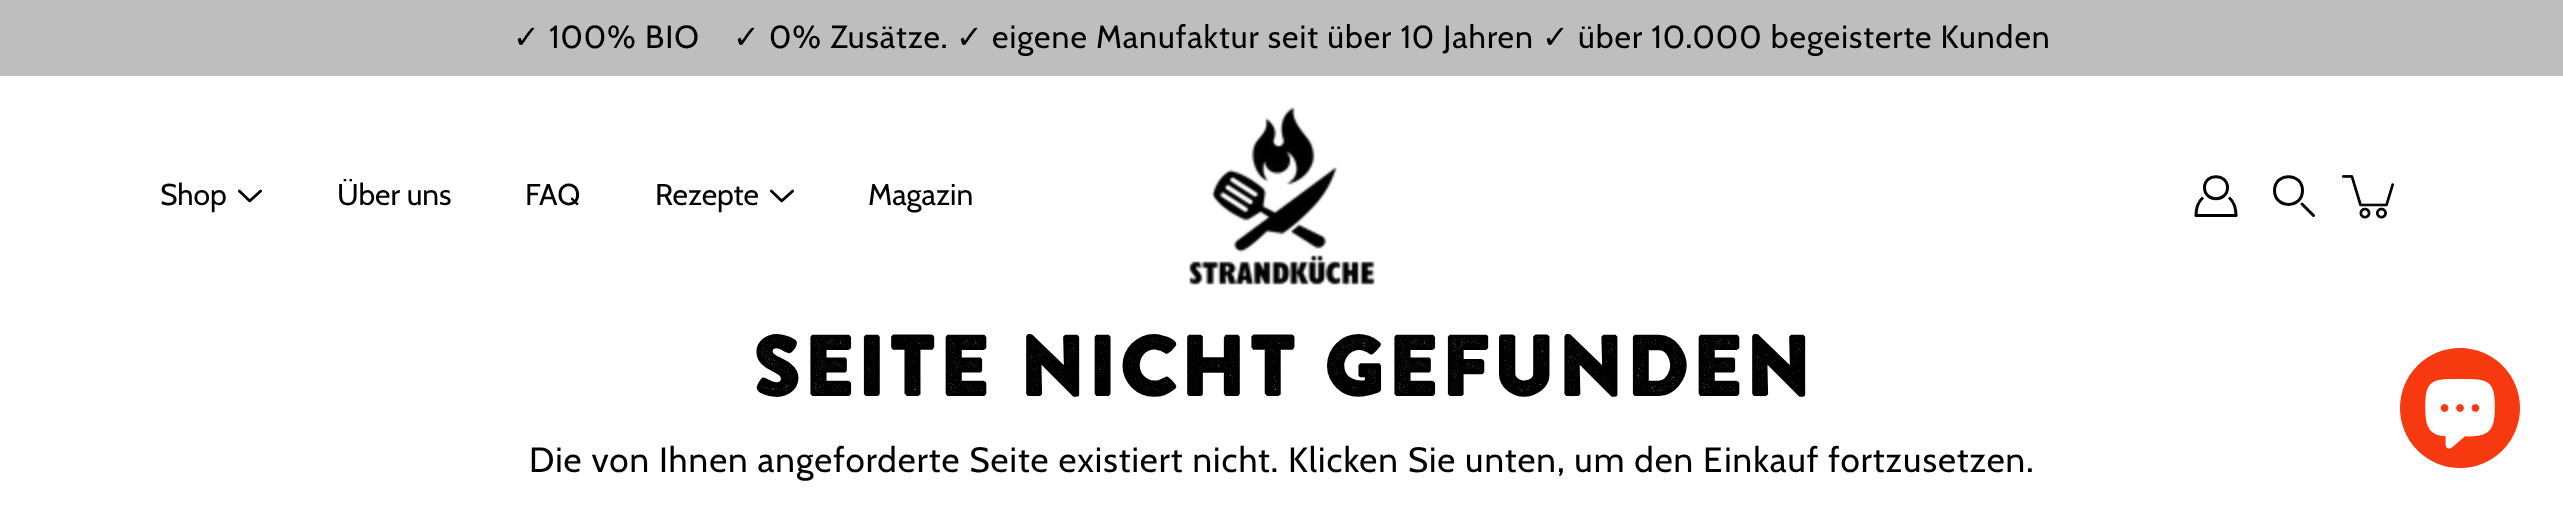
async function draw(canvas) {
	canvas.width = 2563;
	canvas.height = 510;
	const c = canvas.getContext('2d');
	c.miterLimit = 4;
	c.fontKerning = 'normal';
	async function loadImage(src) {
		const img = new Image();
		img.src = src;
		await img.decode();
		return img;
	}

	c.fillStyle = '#fff';
	c.fillRect(0, 0, 2563, 510);
	c.fillStyle = '#bebebe';
	c.fillRect(0, 0, 2563, 76);
	c.letterSpacing = '1px';
	c.font = '32px DejaVu Sans';
	c.fillStyle = '#000';
	c.fillText('✓', 513, 48);
	c.font = '32px Cabin';
	c.fillText('100% BIO', 549, 48);
	c.font = '32px DejaVu Sans';
	c.fillText('✓', 733, 48);
	c.font = '32px Cabin';
	c.fillText('0% Zusätze.', 769, 48);
	c.font = '32px DejaVu Sans';
	c.fillText('✓', 956, 48);
	c.font = '32px Cabin';
	c.fillText('eigene Manufaktur seit über 10 Jahren', 992, 48);
	c.font = '32px DejaVu Sans';
	c.fillText('✓', 1542, 48);
	c.font = '32px Cabin';
	c.fillText('über 10.000 begeisterte Kunden', 1578, 48);
	c.letterSpacing = '0px';
	c.font = '30px Cabin';
	c.fillText('Shop', 160, 205);
	c.drawImage(await loadImage('img1.png'), 238, 189, 24, 14);
	for (const [text, x, y] of [
		['Über uns', 337, 205],
		['FAQ', 525, 205],
		['Rezepte', 655, 205],
	]) {
		c.fillText(text, x, y);
	}
	c.drawImage(await loadImage('img1.png'), 770, 189, 24, 14);
	c.fillText('Magazin', 868, 205);
	c.beginPath();
	c.moveTo(2227.5, 187.5);
	c.bezierCurveTo(2227.5, 202.5, 2204.5, 202.5, 2204.5, 187.5);
	c.bezierCurveTo(2204.5, 173, 2227.5, 173, 2227.5, 187.5);
	c.closePath();
	c.strokeStyle = '#000';
	c.lineWidth = 3;
	c.stroke();
	c.beginPath();
	c.moveTo(2203, 197.5);
	c.bezierCurveTo(2198.5, 201.5, 2196, 207.5, 2196, 215.5);
	c.moveTo(2229, 197.5);
	c.bezierCurveTo(2233.5, 201.5, 2236, 207.5, 2236, 215.5);
	c.lineJoin = 'round';
	c.stroke();
	c.beginPath();
	c.moveTo(2196, 215.5);
	c.lineTo(2236, 215.5);
	c.lineCap = 'round';
	c.stroke();
	c.beginPath();
	c.moveTo(2302.5, 190.5);
	c.bezierCurveTo(2302.5, 209, 2274.5, 209, 2274.5, 190.5);
	c.bezierCurveTo(2274.5, 172, 2302.5, 172, 2302.5, 190.5);
	c.closePath();
	c.lineCap = 'butt';
	c.lineJoin = 'miter';
	c.stroke();
	c.beginPath();
	c.moveTo(2302, 204);
	c.lineTo(2313.5, 215.5);
	c.lineCap = 'round';
	c.stroke();
	c.drawImage(await loadImage('img2.png'), 2341, 175, 53, 44);
	c.drawImage(await loadImage('img3.png'), 1189, 107, 186, 179);
	c.letterSpacing = '1px';
	c.font = 'bold 84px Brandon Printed';
	c.fillText('Seite nicht gefunden', 751, 396);
	c.font = '35px Cabin';
	c.fillText('Die von Ihnen angeforderte Seite existiert nicht. Klicken Sie unten, um den Einkauf fortzusetzen.', 529, 472);
	c.fillStyle = '#f73910';
	c.beginPath();
	c.arc(2460, 408, 60, 0, 2 * Math.PI);
	c.fill();
	c.drawImage(await loadImage('img4.png'), 2425, 379, 70, 70);
}

draw(document.querySelector('canvas'));
